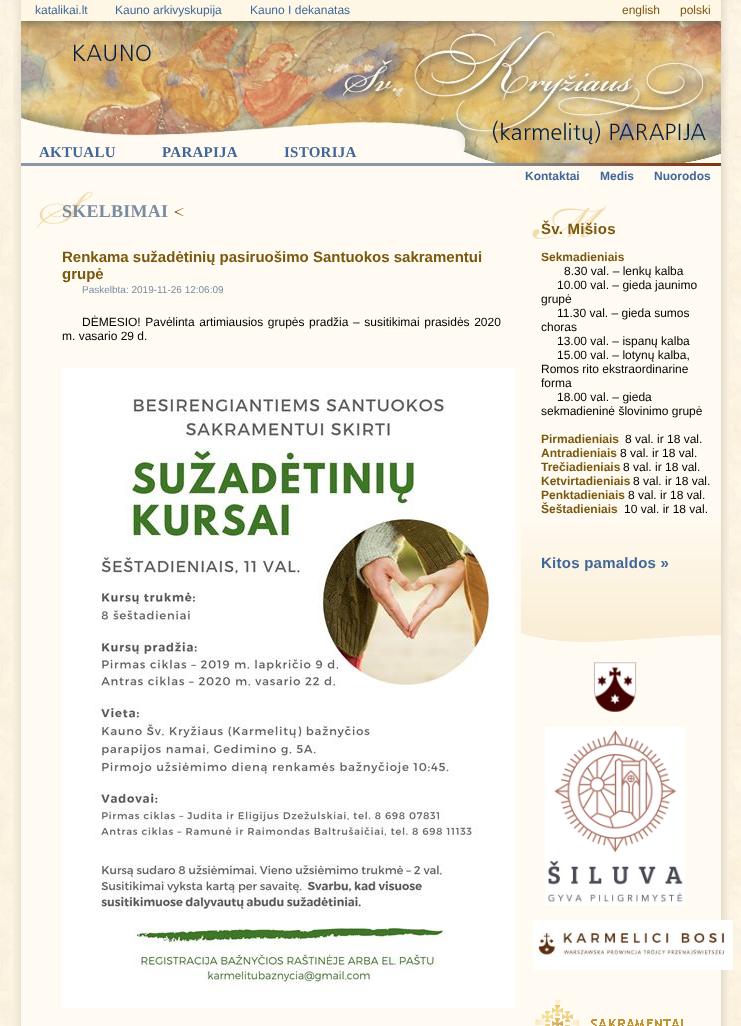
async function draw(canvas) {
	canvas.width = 741;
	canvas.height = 1026;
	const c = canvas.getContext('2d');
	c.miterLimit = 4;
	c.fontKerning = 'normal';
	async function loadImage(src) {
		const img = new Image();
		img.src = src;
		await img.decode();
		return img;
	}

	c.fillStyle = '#fff';
	c.fillRect(0, 0, 741, 1026);
	c.drawImage(await loadImage('img1.png'), 0, 0, 741, 1026);
	c.drawImage(await loadImage('img2.png'), 13, 166, 716, 860);
	c.drawImage(await loadImage('img3.png'), 13, 0, 716, 166);
	c.font = '12px Liberation Sans';
	c.fillStyle = '#41669a';
	for (const [text, x, y] of [
		['katalikai.lt', 35, 14],
		['Kauno arkivyskupija', 115, 14],
		['Kauno I dekanatas', 250, 14],
	]) {
		c.fillText(text, x, y);
	}
	c.fillStyle = '#7a580e';
	c.fillText('english', 622, 14);
	c.fillText('polski', 680, 14);
	c.letterSpacing = '0.25px';
	c.font = 'bold 15px Liberation Serif';
	c.fillStyle = '#41669a';
	for (const [text, x, y] of [
		['AKTUALU', 39, 157],
		['PARAPIJA', 162, 157],
		['ISTORIJA', 284, 157],
	]) {
		c.fillText(text, x, y);
	}
	c.letterSpacing = '0px';
	c.font = 'bold 12px Liberation Sans';
	for (const [text, x, y] of [
		['Kontaktai', 525, 180],
		['Medis', 600, 180],
		['Nuorodos', 654, 180],
	]) {
		c.fillText(text, x, y);
	}
	c.drawImage(await loadImage('img4.png'), 37, 191, 56, 38);
	c.letterSpacing = '0.25px';
	c.font = 'bold 18px Liberation Serif';
	c.fillStyle = '#788ca4';
	c.fillText('SKELBIMAI', 62, 217);
	c.drawImage(await loadImage('img5.png'), 174, 208, 10, 8);
	c.letterSpacing = '0px';
	c.font = 'bold 15px Liberation Sans';
	c.fillStyle = '#7a580e';
	c.fillText('Renkama sužadėtinių pasiruošimo Santuokos sakramentui', 62, 262);
	c.fillText('grupė', 62, 279);
	c.font = '10px Liberation Sans';
	c.fillStyle = '#788ca4';
	c.fillText('Paskelbta: 2019-11-26 12:06:09', 82, 293);
	c.wordSpacing = '1.25px';
	c.font = '12px Liberation Sans';
	c.fillStyle = '#000';
	c.fillText('DĖMESIO! Pavėlinta artimiausios grupės pradžia – susitikimai prasidės 2020', 82, 326);
	c.wordSpacing = '0px';
	c.fillText('m. vasario 29 d.', 62, 340);
	c.drawImage(await loadImage('img6.png'), 62, 368, 453, 640);
	c.drawImage(await loadImage('img7.png'), 521, 524, 200, 118);
	c.drawImage(await loadImage('img8.png'), 532, 205, 75, 34);
	c.letterSpacing = '0.25px';
	c.font = 'bold 15px Liberation Sans';
	c.fillStyle = '#7a580e';
	c.fillText('Šv. Mišios', 541, 234);
	c.letterSpacing = '0px';
	c.font = 'bold 12px Liberation Sans';
	c.fillText('Sekmadieniais', 541, 261);
	c.font = '12px Liberation Sans';
	c.fillStyle = '#000';
	for (const [text, x, y] of [
		['8.30 val. – lenkų kalba', 564, 275],
		['10.00 val. – gieda jaunimo', 557, 289],
		['grupė', 541, 303],
		['11.30 val. – gieda sumos', 557, 317],
		['choras', 541, 331],
		['13.00 val. – ispanų kalba', 557, 345],
		['15.00 val. – lotynų kalba,', 557, 359],
		['Romos rito ekstraordinarine', 541, 373],
		['forma', 541, 387],
		['18.00 val. – gieda', 557, 401],
		['sekmadieninė šlovinimo grupė', 541, 415],
	]) {
		c.fillText(text, x, y);
	}
	c.font = 'bold 12px Liberation Sans';
	c.fillStyle = '#7a580e';
	c.fillText('Pirmadieniais', 541, 443);
	c.font = '12px Liberation Sans';
	c.fillStyle = '#000';
	c.fillText('8 val. ir 18 val.', 625, 443);
	c.font = 'bold 12px Liberation Sans';
	c.fillStyle = '#7a580e';
	c.fillText('Antradieniais', 541, 457);
	c.font = '12px Liberation Sans';
	c.fillStyle = '#000';
	c.fillText('8 val. ir 18 val.', 620, 457);
	c.font = 'bold 12px Liberation Sans';
	c.fillStyle = '#7a580e';
	c.fillText('Trečiadieniais', 541, 471);
	c.font = '12px Liberation Sans';
	c.fillStyle = '#000';
	c.fillText('8 val. ir 18 val.', 623, 471);
	c.font = 'bold 12px Liberation Sans';
	c.fillStyle = '#7a580e';
	c.fillText('Ketvirtadieniais', 541, 485);
	c.font = '12px Liberation Sans';
	c.fillStyle = '#000';
	c.fillText('8 val. ir 18 val.', 633, 485);
	c.font = 'bold 12px Liberation Sans';
	c.fillStyle = '#7a580e';
	c.fillText('Penktadieniais', 541, 499);
	c.font = '12px Liberation Sans';
	c.fillStyle = '#000';
	c.fillText('8 val. ir 18 val.', 628, 499);
	c.font = 'bold 12px Liberation Sans';
	c.fillStyle = '#7a580e';
	c.fillText('Šeštadieniais', 541, 513);
	c.font = '12px Liberation Sans';
	c.fillStyle = '#000';
	c.fillText('10 val. ir 18 val.', 624, 513);
	c.letterSpacing = '0.25px';
	c.font = 'bold 15px Liberation Sans';
	c.fillStyle = '#41669a';
	c.fillText('Kitos pamaldos »', 541, 568);
	c.drawImage(await loadImage('img9.png'), 593, 662, 44, 50);
	c.drawImage(await loadImage('img10.png'), 545, 727, 140, 178);
	c.drawImage(await loadImage('img11.png'), 533, 920, 200, 50);
	c.drawImage(await loadImage('img12.png'), 535, 999, 148, 27);
}

draw(document.querySelector('canvas'));
